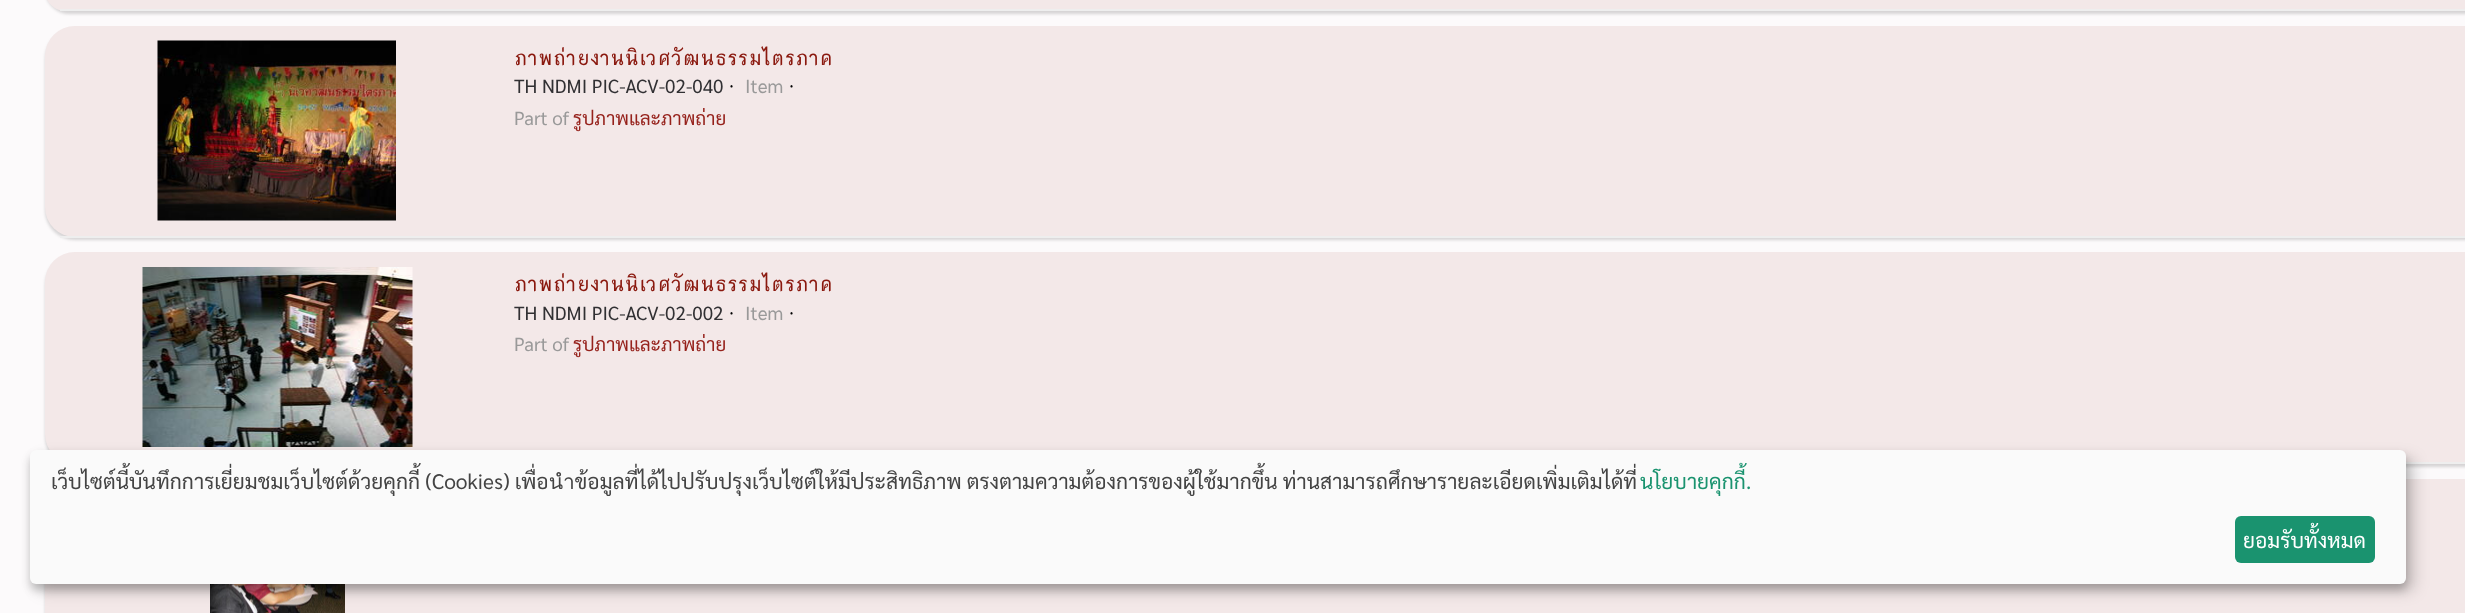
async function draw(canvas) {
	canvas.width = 2465;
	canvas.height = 613;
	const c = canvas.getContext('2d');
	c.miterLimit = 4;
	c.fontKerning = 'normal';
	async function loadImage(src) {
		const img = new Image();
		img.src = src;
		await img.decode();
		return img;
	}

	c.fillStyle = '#fcfafb';
	c.fillRect(0, 0, 2465, 613);
	c.fillStyle = '#00000026';
	c.filter = 'blur(1.5px)';
	c.beginPath();
	c.roundRect(45, -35, 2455, 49, 30);
	c.fill();
	c.filter = 'none';
	c.fillStyle = '#f3e8e8';
	c.beginPath();
	c.roundRect(45, -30, 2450, 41, 30);
	c.fill();
	c.fillStyle = '#eee';
	c.fillRect(60, 9, 2405, 2);
	c.fillStyle = '#00000026';
	c.filter = 'blur(1.5px)';
	c.beginPath();
	c.roundRect(45, 29, 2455, 211, 30);
	c.fill();
	c.filter = 'none';
	c.fillStyle = '#f3e8e8';
	c.beginPath();
	c.roundRect(45, 26, 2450, 211, 30);
	c.fill();
	c.fillStyle = '#eee';
	c.fillRect(60, 236, 2405, 2);
	c.drawImage(await loadImage('img1.png'), 157, 40, 239, 181);
	c.font = '30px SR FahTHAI';
	c.fillStyle = '#8a180e';
	c.fillText('ภาพถ่ายงานนิเวศวัฒนธรรมไตรภาค', 514, 65);
	c.font = '18.9px Sarabun';
	c.fillStyle = '#313033';
	c.fillText('TH NDMI PIC-ACV-02-040', 514, 93);
	c.font = '18.9px Open Sans';
	c.fillStyle = '#000';
	c.fillText('·', 729, 93);
	c.font = '18.9px Sarabun';
	c.fillStyle = '#999';
	c.fillText('Item', 745, 93);
	c.font = '18.9px Open Sans';
	c.fillStyle = '#000';
	c.fillText('·', 789, 93);
	c.font = '18.9px Sarabun';
	c.fillStyle = '#999';
	c.fillText('Part of', 514, 125);
	c.fillStyle = '#96221c';
	c.fillText('รูปภาพและภาพถ่าย', 573, 125);
	c.fillStyle = '#00000026';
	c.filter = 'blur(1.5px)';
	c.beginPath();
	c.roundRect(45, 255, 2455, 212, 30);
	c.fill();
	c.filter = 'none';
	c.fillStyle = '#f3e8e8';
	c.beginPath();
	c.roundRect(45, 252, 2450, 212, 30);
	c.fill();
	c.fillStyle = '#eee';
	c.fillRect(2406, 462, 59, 2);
	c.drawImage(await loadImage('img2.png'), 142, 267, 271, 180);
	c.font = '30px SR FahTHAI';
	c.fillStyle = '#8a180e';
	c.fillText('ภาพถ่ายงานนิเวศวัฒนธรรมไตรภาค', 514, 291);
	c.font = '18.9px Sarabun';
	c.fillStyle = '#313033';
	c.fillText('TH NDMI PIC-ACV-02-002', 514, 320);
	c.font = '18.9px Open Sans';
	c.fillStyle = '#000';
	c.fillText('·', 729, 320);
	c.font = '18.9px Sarabun';
	c.fillStyle = '#999';
	c.fillText('Item', 745, 320);
	c.font = '18.9px Open Sans';
	c.fillStyle = '#000';
	c.fillText('·', 789, 320);
	c.font = '18.9px Sarabun';
	c.fillStyle = '#999';
	c.fillText('Part of', 514, 351);
	c.fillStyle = '#96221c';
	c.fillText('รูปภาพและภาพถ่าย', 573, 351);
	c.fillStyle = '#00000026';
	c.filter = 'blur(1.5px)';
	c.beginPath();
	c.roundRect(45, 482, 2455, 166, 30);
	c.fill();
	c.filter = 'none';
	c.fillStyle = '#f3e8e8';
	c.fillRect(45, 479, 2420, 134);
	c.drawImage(await loadImage('img3.png'), 210, 584, 135, 29);
	c.fillStyle = '#00000030';
	c.filter = 'blur(7.5px)';
	c.beginPath();
	c.roundRect(38, 458, 2376, 133, 6);
	c.fill();
	c.filter = 'none';
	c.fillStyle = '#00000033';
	c.filter = 'blur(4.5px)';
	c.beginPath();
	c.roundRect(30, 456, 2376, 134, 6);
	c.fill();
	c.filter = 'none';
	c.fillStyle = '#fafafa';
	c.beginPath();
	c.roundRect(30, 450, 2376, 134, 6);
	c.fill();
	c.font = '21px Sarabun';
	c.fillStyle = '#444';
	c.fillText('เว็บไซต์นี้บันทึกการเยี่ยมชมเว็บไซต์ด้วยคุกกี้ (Cookies) เพื่อนำข้อมูลที่ได้ไปปรับปรุงเว็บไซต์ให้มีประสิทธิภาพ ตรงตามความต้องการของผู้ใช้มากขึ้น ท่านสามารถศึกษารายละเอียดเพิ่มเติมได้ที่', 51, 489);
	c.fillStyle = '#1a936f';
	c.fillText('นโยบายคุกกี้.', 1640, 489);
	c.beginPath();
	c.roundRect(2235, 516, 140, 47, 6);
	c.fill();
	c.fillStyle = '#fff';
	c.fillText('ยอมรับทั้งหมด', 2243, 548);
}

draw(document.querySelector('canvas'));
